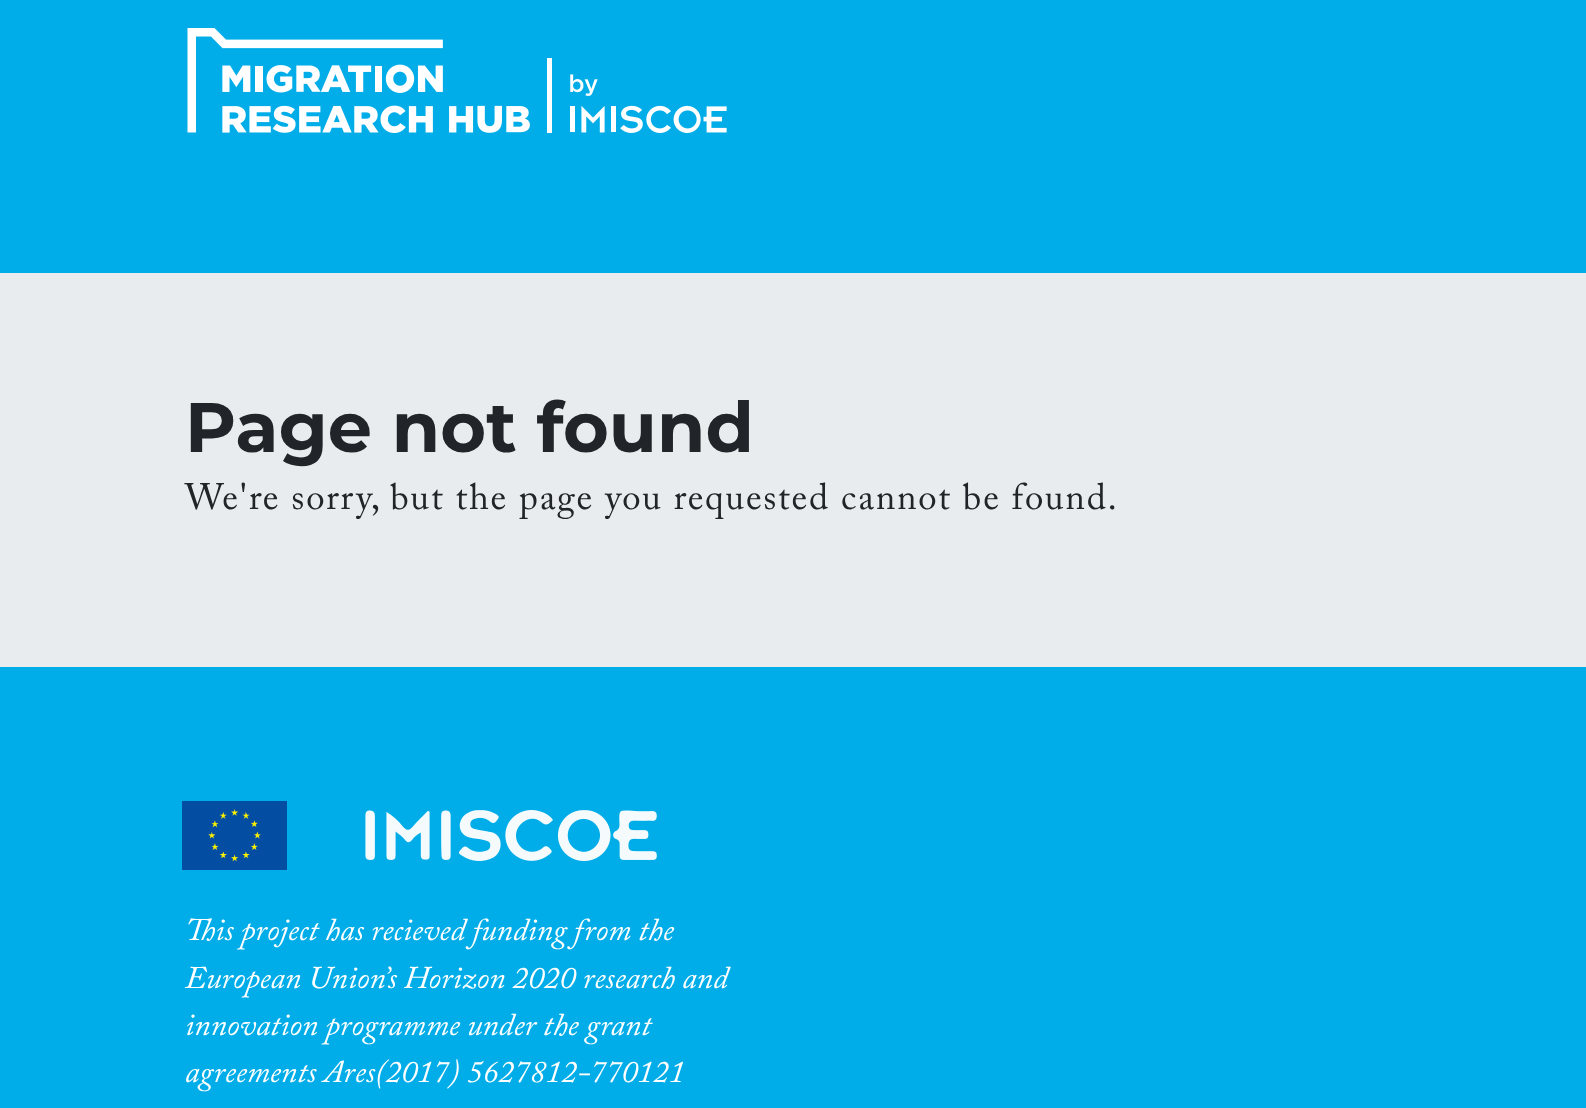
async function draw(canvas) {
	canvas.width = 1586;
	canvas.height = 1108;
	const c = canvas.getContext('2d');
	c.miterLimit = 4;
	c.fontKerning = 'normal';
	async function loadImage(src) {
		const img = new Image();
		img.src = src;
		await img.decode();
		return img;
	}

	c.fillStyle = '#00ade8';
	c.fillRect(0, 0, 1586, 1108);
	c.drawImage(await loadImage('img1.png'), 187, 28, 540, 105);
	c.fillStyle = '#e9ecef';
	c.fillRect(0, 273, 1586, 394);
	c.font = 'bold 70px Montserrat';
	c.fillStyle = '#212529';
	c.fillText('Page not found', 185, 452);
	c.letterSpacing = '1.75px';
	c.font = '36.75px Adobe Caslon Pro';
	c.fillText('We\'re sorry, but the page you requested cannot be found.', 185, 509);
	c.drawImage(await loadImage('img2.png'), 182, 801, 475, 69);
	c.letterSpacing = '0px';
	c.font = 'italic 31.5px Adobe Caslon Pro';
	c.fillStyle = '#fff';
	for (const [text, x, y] of [
		['This project has recieved funding from the', 185, 940],
		['European Union’s Horizon 2020 research and', 185, 988],
		['innovation programme under the grant', 185, 1035],
		['agreements Ares(2017) 5627812-770121', 185, 1082],
	]) {
		c.fillText(text, x, y);
	}
}

draw(document.querySelector('canvas'));
